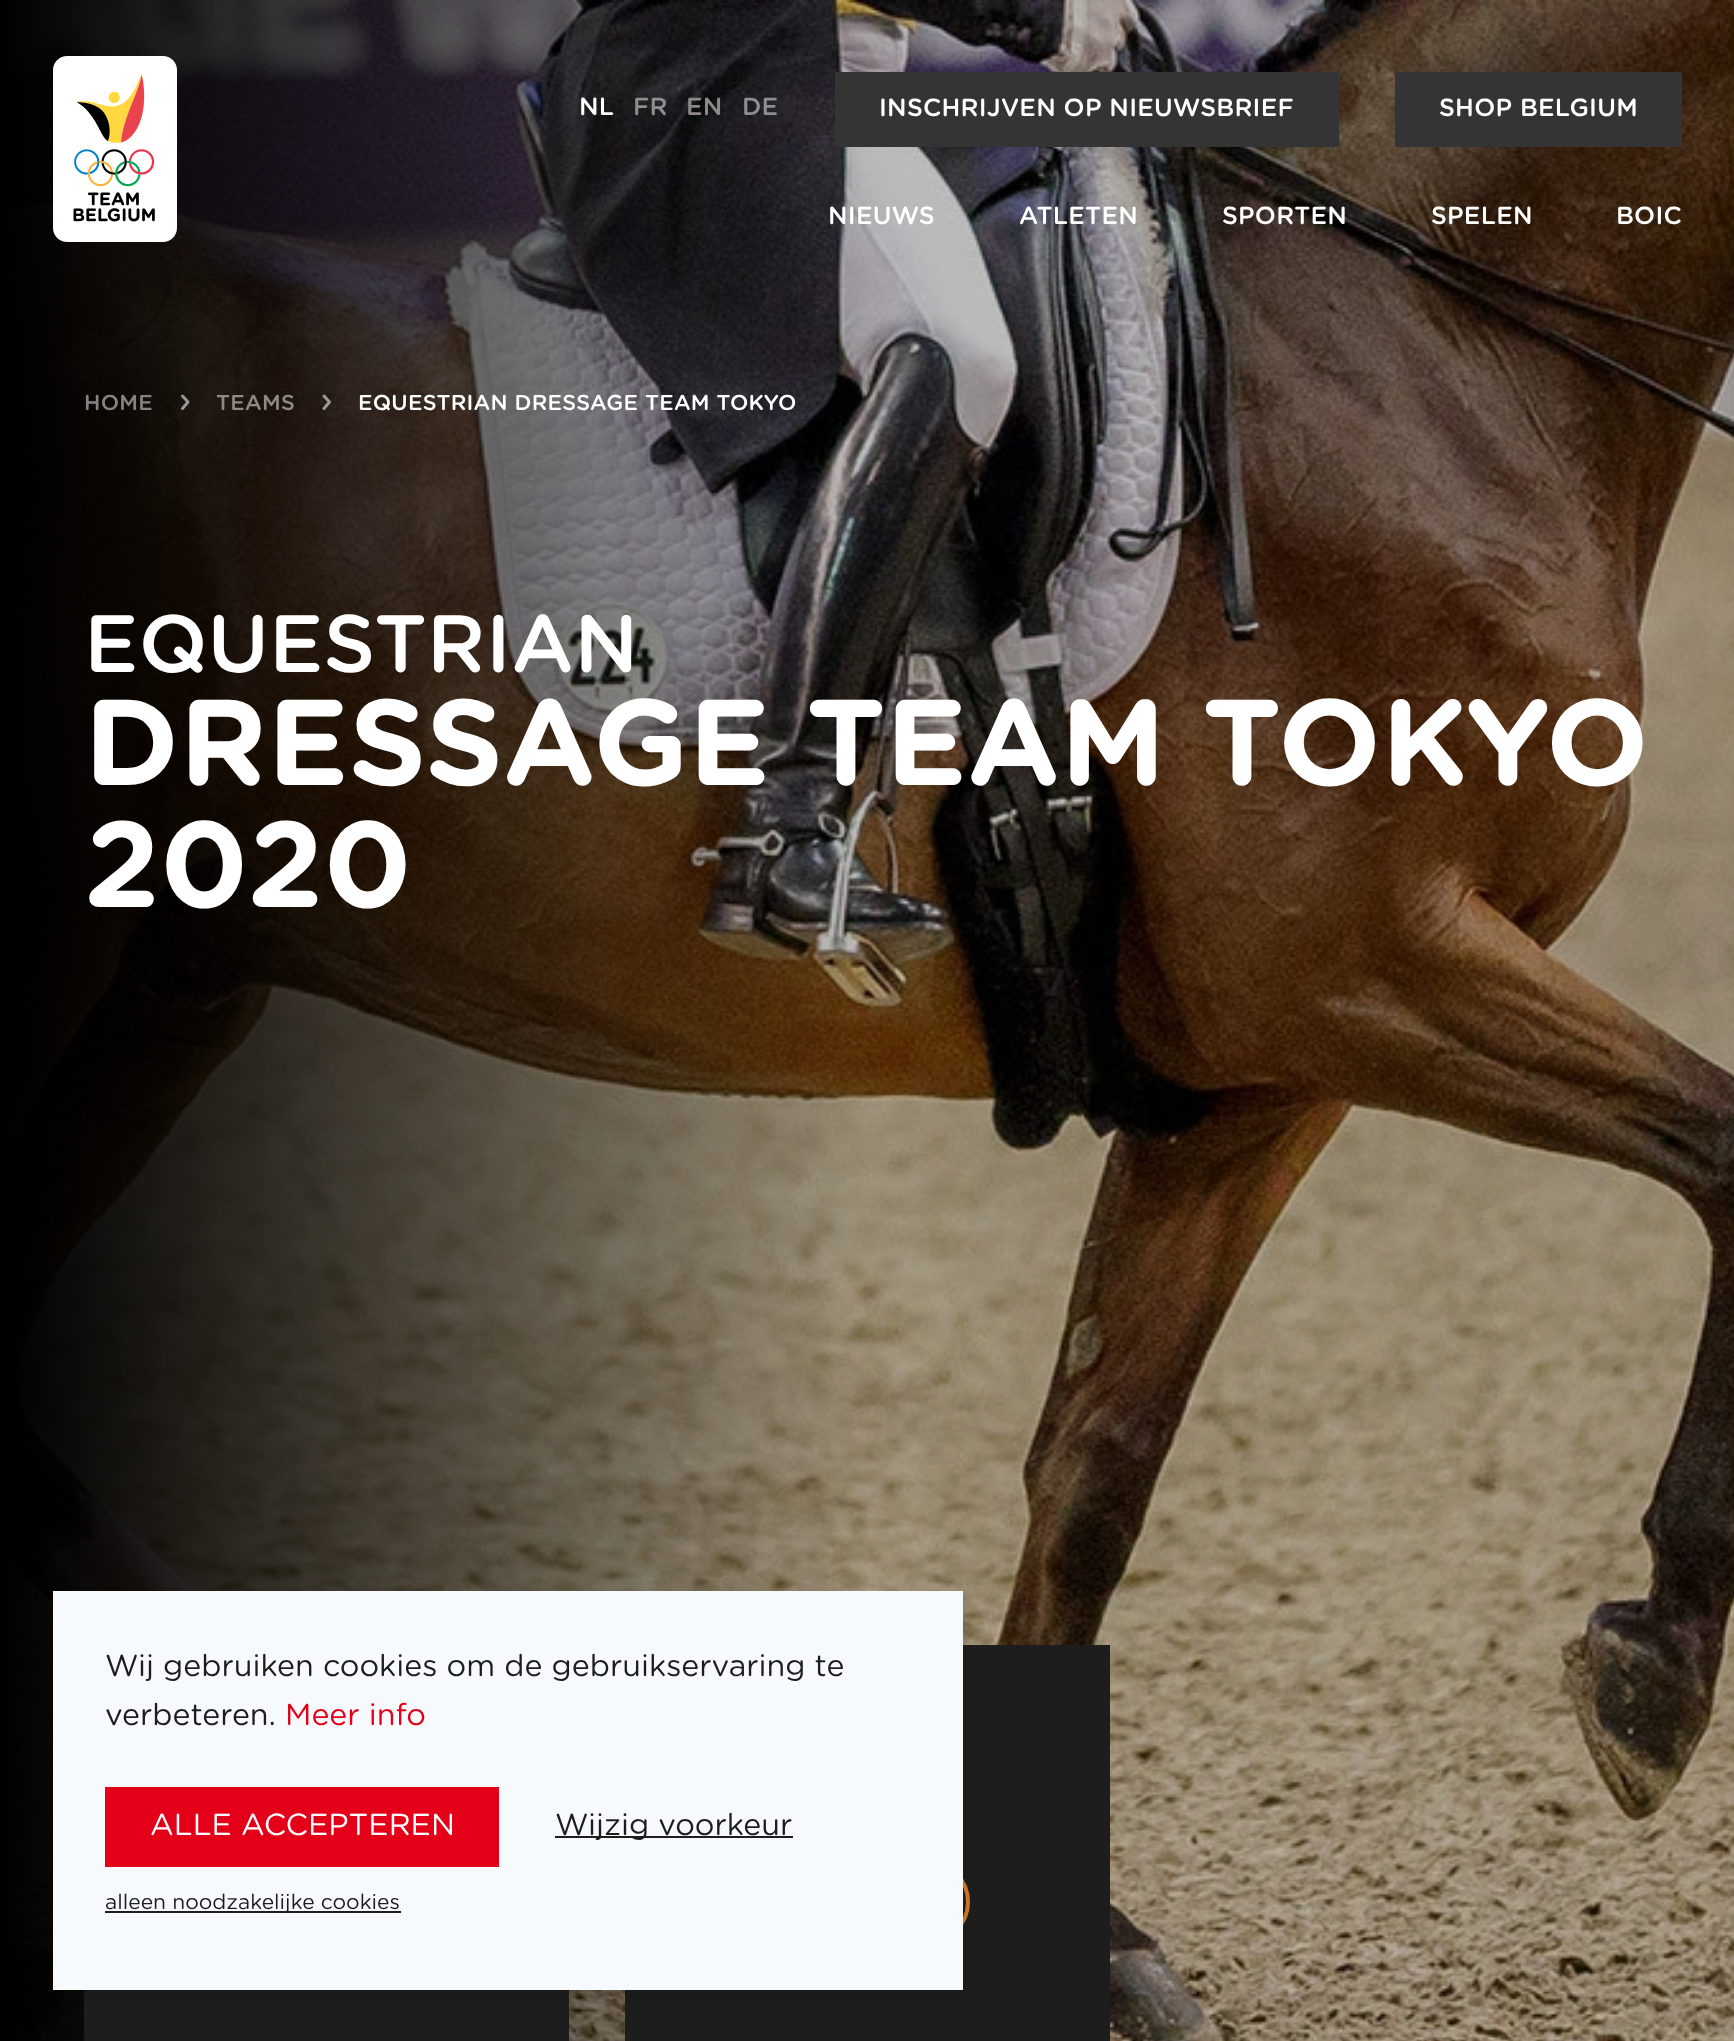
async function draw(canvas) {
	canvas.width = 1734;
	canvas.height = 2041;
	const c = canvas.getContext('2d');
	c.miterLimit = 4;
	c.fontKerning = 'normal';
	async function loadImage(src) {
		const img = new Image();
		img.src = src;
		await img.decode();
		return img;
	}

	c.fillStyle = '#fff';
	c.fillRect(0, 0, 1734, 2041);
	c.drawImage(await loadImage('img2.png'), 0, 0, 1734, 2041);
	c.drawImage(await loadImage('img1.png'), 53, 56, 124, 186);
	c.letterSpacing = '0.25px';
	c.font = '500 24.75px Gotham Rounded';
	c.fillText('NL', 579, 115);
	c.fillStyle = '#8f8f91';
	c.fillText('FR', 633, 115);
	c.fillStyle = '#8e8986';
	c.fillText('EN', 686, 115);
	c.fillStyle = '#8f8f91';
	c.fillText('DE', 742, 115);
	c.fillStyle = '#343434';
	c.fillRect(835, 72, 504, 75);
	c.fillStyle = '#fff';
	c.fillText('INSCHRIJVEN OP NIEUWSBRIEF', 879, 116);
	c.fillStyle = '#343434';
	c.fillRect(1395, 72, 287, 75);
	c.fillStyle = '#fff';
	for (const [text, x, y] of [
		['SHOP BELGIUM', 1439, 116],
		['NIEUWS', 828, 224],
		['ATLETEN', 1019, 224],
		['SPORTEN', 1222, 224],
		['SPELEN', 1431, 224],
		['BOIC', 1616, 224],
	]) {
		c.fillText(text, x, y);
	}
	c.font = '500 21.6px Gotham Rounded';
	c.fillStyle = '#868482';
	c.fillText('HOME', 84, 410);
	c.beginPath();
	c.moveTo(182.5, 396);
	c.lineTo(188, 402);
	c.lineTo(182.5, 408.5);
	c.strokeStyle = '#999';
	c.lineWidth = 3;
	c.lineCap = 'round';
	c.lineJoin = 'round';
	c.stroke();
	c.fillStyle = '#8e8986';
	c.fillText('TEAMS', 216, 410);
	c.beginPath();
	c.moveTo(324, 396);
	c.lineTo(329.5, 402);
	c.lineTo(324, 408.5);
	c.stroke();
	c.fillStyle = '#fff';
	c.fillText('EQUESTRIAN DRESSAGE TEAM TOKYO', 358, 410);
	c.letterSpacing = '0px';
	c.font = '500 81.25px Gotham Rounded';
	c.fillText('EQUESTRIAN', 84, 672);
	c.font = 'bold 121.75px Gotham Rounded';
	c.fillText('DRESSAGE TEAM TOKYO', 84, 785);
	c.fillText('2020', 84, 907);
	c.fillStyle = '#1d1d1d';
	c.fillRect(84, 1990, 485, 51);
	c.fillRect(625, 1645, 485, 396);
	c.beginPath();
	c.arc(928, 1902, 40, 0, 2 * Math.PI);
	c.strokeStyle = '#d07729';
	c.lineWidth = 4;
	c.stroke();
	c.fillStyle = '#0000001f';
	c.filter = 'blur(5px)';
	c.beginPath();
	c.rect(53, 1596, 910, 399);
	c.fill();
	c.filter = 'none';
	c.fillStyle = '#f7fafc';
	c.fillRect(53, 1591, 910, 399);
	c.font = '30.4px Gotham Rounded';
	c.fillStyle = '#1d1d1d';
	c.fillText('Wij gebruiken cookies om de gebruikservaring te', 105, 1676);
	c.fillText('verbeteren.', 105, 1725);
	c.fillStyle = '#e50019';
	c.fillText('Meer info', 285, 1725);
	c.fillRect(105, 1787, 394, 80);
	c.fillStyle = '#fff';
	c.fillText('ALLE ACCEPTEREN', 150, 1835);
	c.fillStyle = '#1d1d1d';
	c.fillRect(555, 1836, 238, 2);
	c.fillText('Wijzig voorkeur', 555, 1835);
	c.fillRect(105, 1911, 296, 2);
	c.font = '21px Gotham Rounded';
	c.fillText('alleen noodzakelijke cookies', 105, 1909);
}

draw(document.querySelector('canvas'));
